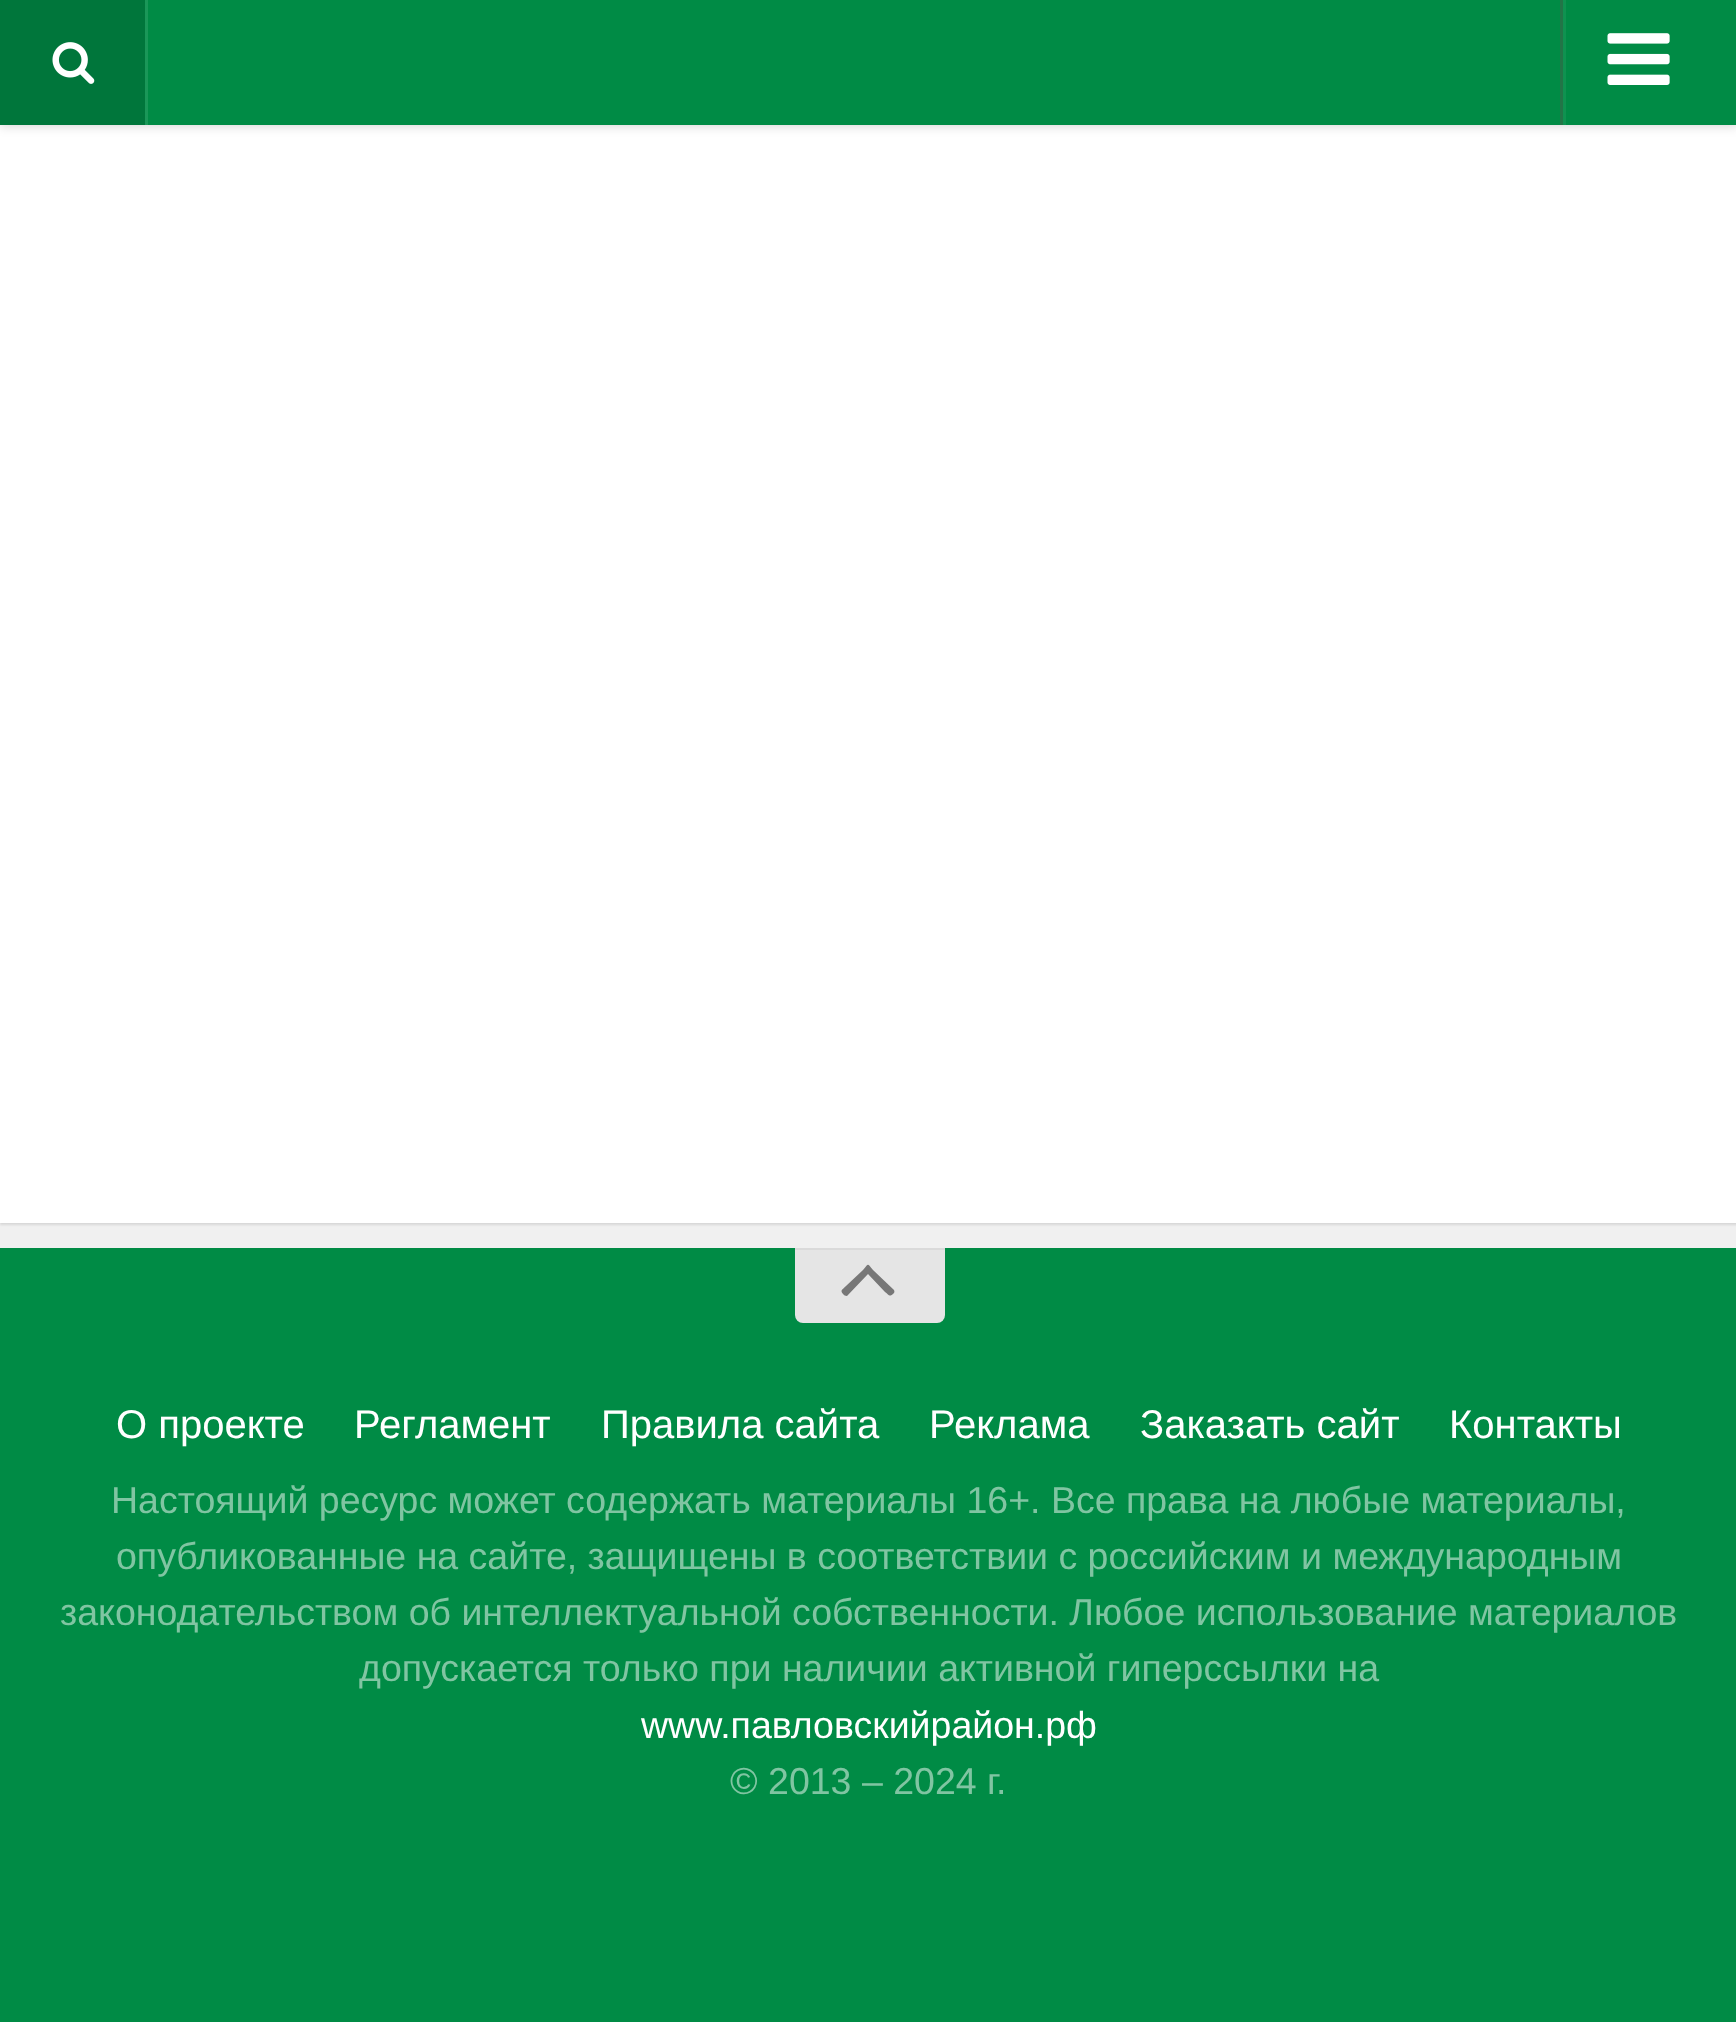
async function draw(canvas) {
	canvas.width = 1736;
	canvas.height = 2022;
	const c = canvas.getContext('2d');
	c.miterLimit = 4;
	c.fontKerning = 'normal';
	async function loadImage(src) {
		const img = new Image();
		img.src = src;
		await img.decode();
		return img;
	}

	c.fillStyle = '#f0f0f0';
	c.fillRect(0, 0, 1736, 2022);
	c.fillStyle = '#0000001a';
	c.filter = 'blur(1px)';
	c.beginPath();
	c.rect(0, -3, 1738, 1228);
	c.fill();
	c.filter = 'none';
	c.fillStyle = '#fff';
	c.fillRect(0, 125, 1736, 1098);
	c.fillStyle = '#00000033';
	c.filter = 'blur(6px)';
	c.beginPath();
	c.rect(0, 0, 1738, 125);
	c.fill();
	c.filter = 'none';
	for (const [x, y, w, h, color] of [
		[148, 0, 1588, 125, '#008b45'],
		[145, 0, 3, 125, '#1a9758'],
		[0, 0, 145, 125, '#00763b'],
	]) {
		c.fillStyle = color;
		c.fillRect(x, y, w, h);
	}
	c.drawImage(await loadImage('img1.png'), 52, 42, 43, 42);
	c.fillStyle = '#0f9250';
	c.fillRect(1563, 0, 3, 125);
	c.fillStyle = '#227547';
	c.fillRect(1560, 0, 3, 125);
	c.drawImage(await loadImage('img2.png'), 1607, 33, 63, 52);
	c.fillStyle = '#008b45';
	c.fillRect(0, 1248, 1736, 774);
	c.fillStyle = '#e5e5e5';
	c.beginPath();
	c.roundRect(795, 1248, 150, 75, [0, 0, 8, 8]);
	c.fill();
	c.fillStyle = '#dadada';
	c.fillRect(795, 1248, 150, 2);
	c.fillStyle = '#777';
	c.beginPath();
	c.moveTo(894, 1290);
	c.bezierCurveTo(895, 1292, 894, 1293, 893, 1294);
	c.bezierCurveTo(889, 1297, 889, 1295, 885, 1292);
	c.lineTo(868, 1274);
	c.lineTo(847, 1296);
	c.bezierCurveTo(845, 1296, 844, 1295, 843, 1294);
	c.bezierCurveTo(840, 1290, 842, 1290, 846, 1286);
	c.lineTo(863, 1270);
	c.bezierCurveTo(869, 1263, 867, 1263, 873, 1270);
	c.closePath();
	c.fill();
	c.font = '40px Liberation Sans';
	c.fillStyle = '#fff';
	for (const [text, x, y] of [
		['О проекте', 116, 1438],
		['Регламент', 354, 1438],
		['Правила сайта', 601, 1438],
		['Реклама', 929, 1438],
		['Заказать сайт', 1140, 1438],
		['Контакты', 1449, 1438],
	]) {
		c.fillText(text, x, y);
	}
	c.font = '37.5px Liberation Sans';
	c.fillStyle = '#80c5a2';
	for (const [text, x, y] of [
		['Настоящий ресурс может содержать материалы 16+. Все права на любые материалы,', 111, 1513],
		['опубликованные на сайте, защищены в соответствии с российским и международным', 116, 1569],
		['законодательством об интеллектуальной собственности. Любое использование материалов', 60, 1625],
		['допускается только при наличии активной гиперссылки на', 359, 1681],
	]) {
		c.fillText(text, x, y);
	}
	c.fillStyle = '#fff';
	c.fillText('www.павловскийрайон.рф', 641, 1738);
	c.fillStyle = '#80c5a2';
	c.fillText('© 2013 – 2024 г.', 730, 1794);
}

draw(document.querySelector('canvas'));
